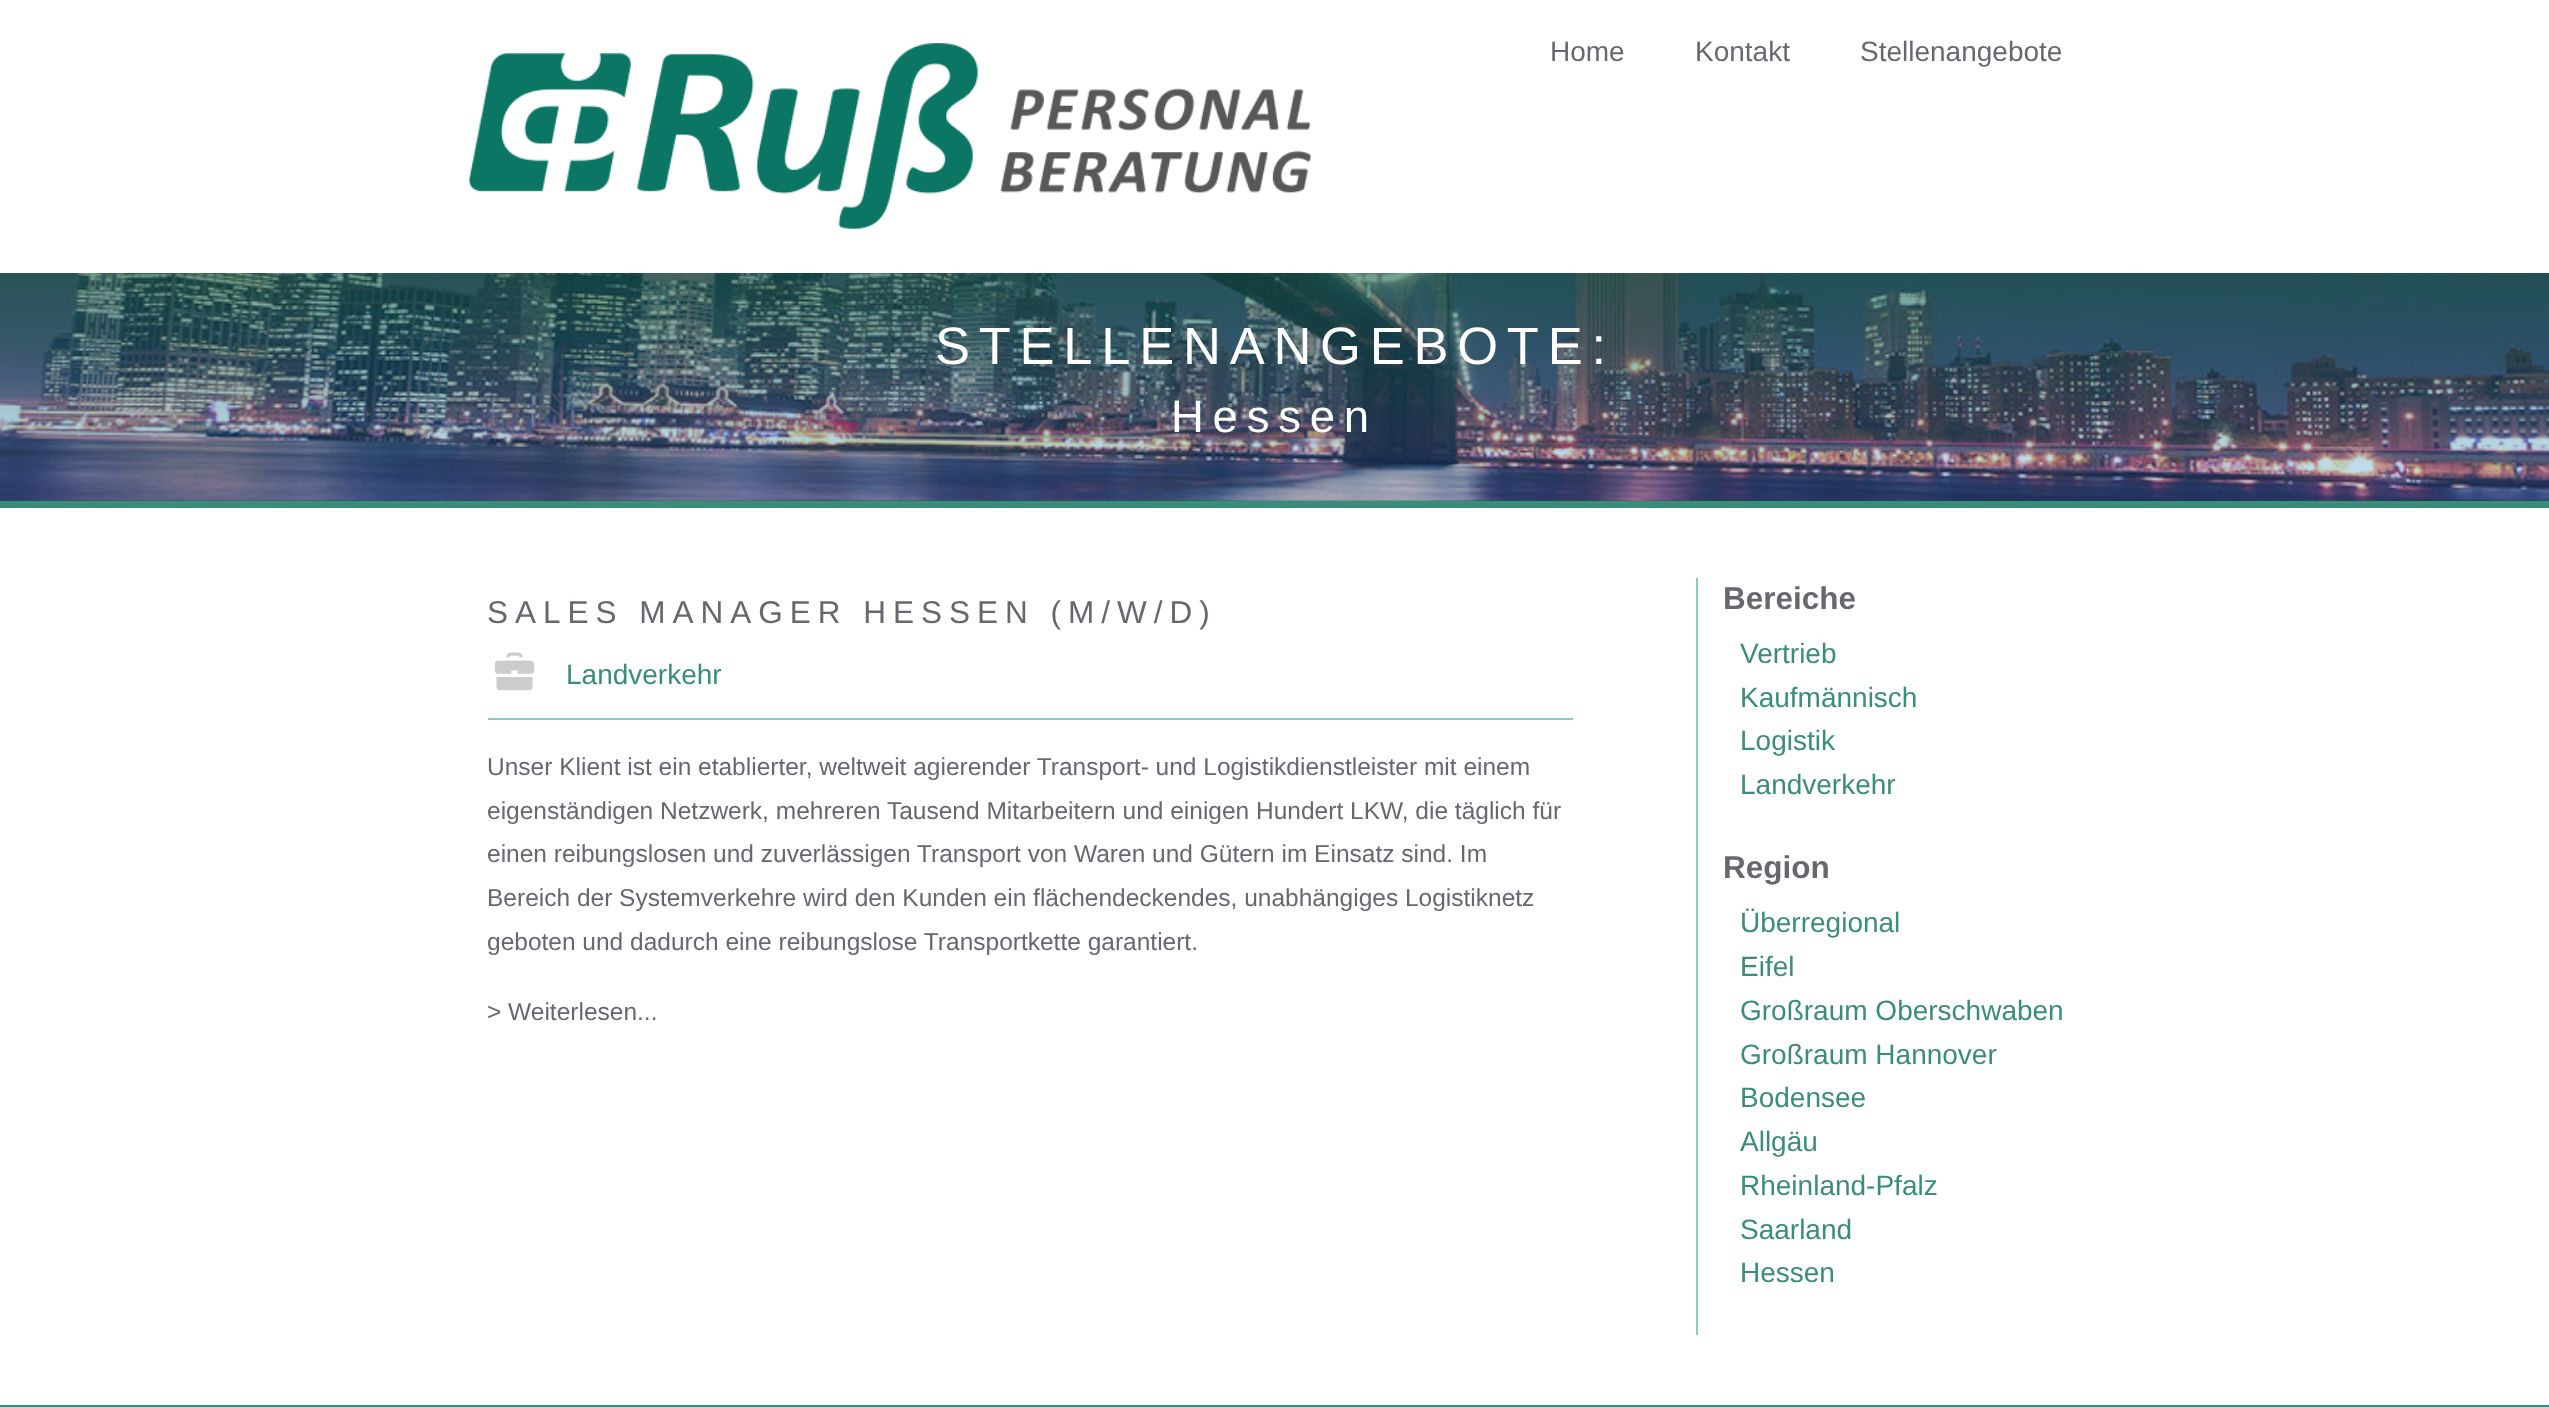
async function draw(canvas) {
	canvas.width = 2549;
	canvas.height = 1407;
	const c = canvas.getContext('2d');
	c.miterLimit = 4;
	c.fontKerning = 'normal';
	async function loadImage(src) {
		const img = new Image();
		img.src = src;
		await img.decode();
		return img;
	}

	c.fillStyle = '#fff';
	c.fillRect(0, 0, 2549, 1407);
	c.drawImage(await loadImage('img1.png'), 469, 43, 842, 186);
	c.font = '28px Liberation Sans';
	c.fillStyle = '#676770';
	for (const [text, x, y] of [
		['Home', 1550, 61],
		['Kontakt', 1695, 61],
		['Stellenangebote', 1860, 61],
	]) {
		c.fillText(text, x, y);
	}
	c.drawImage(await loadImage('img2.png'), 0, 273, 2549, 228);
	c.fillStyle = '#398d7a';
	c.fillRect(0, 501, 2549, 7);
	c.letterSpacing = '8.75px';
	c.font = '52.5px Liberation Sans';
	c.fillStyle = '#fff';
	c.fillText('STELLENANGEBOTE:', 935, 364);
	c.font = '45.5px Liberation Sans';
	c.fillText('Hessen', 1171, 432);
	c.fillStyle = '#398d7a';
	c.fillRect(0, 1405, 2549, 2);
	c.letterSpacing = '7px';
	c.font = '31.5px Liberation Sans';
	c.fillStyle = '#676770';
	c.fillText('SALES MANAGER HESSEN (M/W/D)', 487, 623);
	c.drawImage(await loadImage('img3.png'), 494, 652, 41, 39);
	c.letterSpacing = '0px';
	c.font = '28px Liberation Sans';
	c.fillStyle = '#398d7a';
	c.fillText('Landverkehr', 566, 684);
	c.fillStyle = '#8ecabd';
	c.fillRect(488, 718, 1085, 2);
	c.font = '24.5px Liberation Sans';
	c.fillStyle = '#676770';
	for (const [text, x, y] of [
		['Unser Klient ist ein etablierter, weltweit agierender Transport- und Logistikdienstleister mit einem', 487, 775],
		['eigenständigen Netzwerk, mehreren Tausend Mitarbeitern und einigen Hundert LKW, die täglich für', 487, 819],
		['einen reibungslosen und zuverlässigen Transport von Waren und Gütern im Einsatz sind. Im', 487, 862],
		['Bereich der Systemverkehre wird den Kunden ein flächendeckendes, unabhängiges Logistiknetz', 487, 906],
		['geboten und dadurch eine reibungslose Transportkette garantiert.', 487, 950],
		['> Weiterlesen...', 487, 1020],
	]) {
		c.fillText(text, x, y);
	}
	c.fillStyle = '#8ecabd';
	c.fillRect(1696, 578, 2, 757);
	c.font = 'bold 31.5px Liberation Sans';
	c.fillStyle = '#676770';
	c.fillText('Bereiche', 1723, 609);
	c.font = '28px Liberation Sans';
	c.fillStyle = '#398d7a';
	for (const [text, x, y] of [
		['Vertrieb', 1740, 663],
		['Kaufmännisch', 1740, 707],
		['Logistik', 1740, 750],
		['Landverkehr', 1740, 794],
	]) {
		c.fillText(text, x, y);
	}
	c.font = 'bold 31.5px Liberation Sans';
	c.fillStyle = '#676770';
	c.fillText('Region', 1723, 878);
	c.font = '28px Liberation Sans';
	c.fillStyle = '#398d7a';
	for (const [text, x, y] of [
		['Überregional', 1740, 932],
		['Eifel', 1740, 976],
		['Großraum Oberschwaben', 1740, 1020],
		['Großraum Hannover', 1740, 1064],
		['Bodensee', 1740, 1107],
		['Allgäu', 1740, 1151],
		['Rheinland-Pfalz', 1740, 1195],
		['Saarland', 1740, 1239],
		['Hessen', 1740, 1282],
	]) {
		c.fillText(text, x, y);
	}
}

draw(document.querySelector('canvas'));
